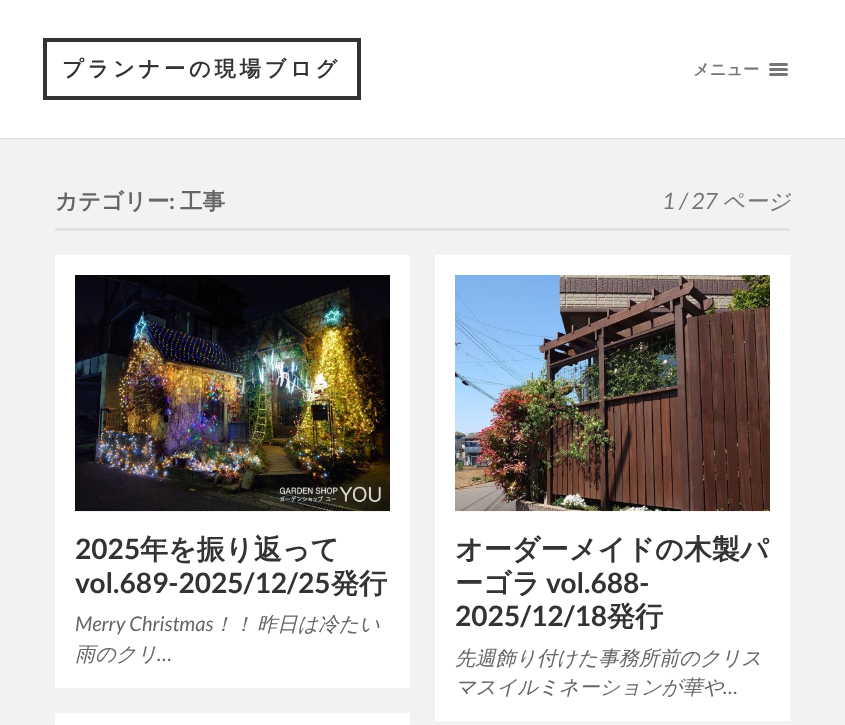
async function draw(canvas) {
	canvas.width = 845;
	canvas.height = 725;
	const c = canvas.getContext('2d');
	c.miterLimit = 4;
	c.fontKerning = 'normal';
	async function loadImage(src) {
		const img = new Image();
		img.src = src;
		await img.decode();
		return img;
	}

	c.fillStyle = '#f2f2f2';
	c.fillRect(0, 0, 845, 725);
	c.fillStyle = '#fff';
	c.fillRect(0, 0, 845, 138);
	c.fillStyle = '#ddd';
	c.fillRect(0, 138, 845, 1);
	c.strokeStyle = '#333';
	c.lineWidth = 4;
	c.strokeRect(45, 40, 314, 58);
	c.letterSpacing = '3.75px';
	c.font = 'bold 21.25px WenQuanYi Zen Hei';
	c.fillStyle = '#333';
	c.fillText('プランナーの現場ブログ', 62, 76);
	c.letterSpacing = '0px';
	c.font = 'bold 16.25px WenQuanYi Zen Hei';
	c.fillStyle = '#767676';
	c.fillText('メニュー', 693, 75);
	c.beginPath();
	c.roundRect(769, 63, 19, 3, 1.5);
	c.fill();
	c.beginPath();
	c.roundRect(769, 68, 19, 3, 1.5);
	c.fill();
	c.beginPath();
	c.roundRect(769, 73, 19, 3, 1.5);
	c.fill();
	c.fillStyle = '#e1e1e1';
	c.fillRect(55, 228, 735, 3);
	c.font = 'bold 22.5px WenQuanYi Zen Hei';
	c.fillStyle = '#666';
	c.fillText('カテゴリー', 55, 209);
	c.font = 'bold 22.5px Lato';
	c.fillText(':', 169, 209);
	c.font = 'bold 22.5px WenQuanYi Zen Hei';
	c.fillText('工事', 180, 209);
	c.font = 'italic 22.5px Lato';
	c.fillStyle = '#767676';
	c.fillText('1 / 27', 662, 209);
	c.font = 'italic 500 22.5px WenQuanYi Zen Hei';
	c.fillText('ページ', 722, 209);
	c.fillStyle = '#fff';
	c.fillRect(55, 255, 355, 433);
	c.drawImage(await loadImage('img1.png'), 75, 275, 315, 237);
	c.font = 'bold 28.1px Lato';
	c.fillStyle = '#333';
	c.fillText('2025', 75, 559);
	c.font = 'bold 28.1px WenQuanYi Zen Hei';
	c.fillText('年を振り返って', 140, 559);
	c.font = 'bold 28.1px Lato';
	c.fillText('vol.689-2025/12/25', 75, 593);
	c.font = 'bold 28.1px WenQuanYi Zen Hei';
	c.fillText('発行', 331, 593);
	c.font = 'italic 20.25px Lato';
	c.fillStyle = '#666';
	c.fillText('Merry Christmas', 75, 631);
	c.font = 'italic 500 20.25px WenQuanYi Zen Hei';
	for (const [text, x, y] of [
		['！！', 213, 631],
		['昨日は冷たい', 257, 631],
		['雨のクリ', 75, 661],
	]) {
		c.fillText(text, x, y);
	}
	c.font = 'italic 20.25px Lato';
	c.fillText('…', 157, 661);
	c.fillStyle = '#fff';
	c.fillRect(435, 255, 355, 466);
	c.drawImage(await loadImage('img2.png'), 455, 275, 315, 237);
	c.font = 'bold 28.1px WenQuanYi Zen Hei';
	c.fillStyle = '#333';
	c.fillText('オーダーメイドの木製パ', 455, 559);
	c.fillText('ーゴラ', 455, 593);
	c.font = 'bold 28.1px Lato';
	c.fillText('vol.688-', 546, 593);
	c.fillText('2025/12/18', 455, 626);
	c.font = 'bold 28.1px WenQuanYi Zen Hei';
	c.fillText('発行', 607, 626);
	c.font = 'italic 500 20.25px WenQuanYi Zen Hei';
	c.fillStyle = '#666';
	c.fillText('先週飾り付けた事務所前のクリス', 455, 665);
	c.fillText('マスイルミネーションが華や', 455, 694);
	c.font = 'italic 20.25px Lato';
	c.fillText('…', 723, 694);
	c.fillStyle = '#fff';
	c.fillRect(55, 713, 355, 12);
}

draw(document.querySelector('canvas'));
